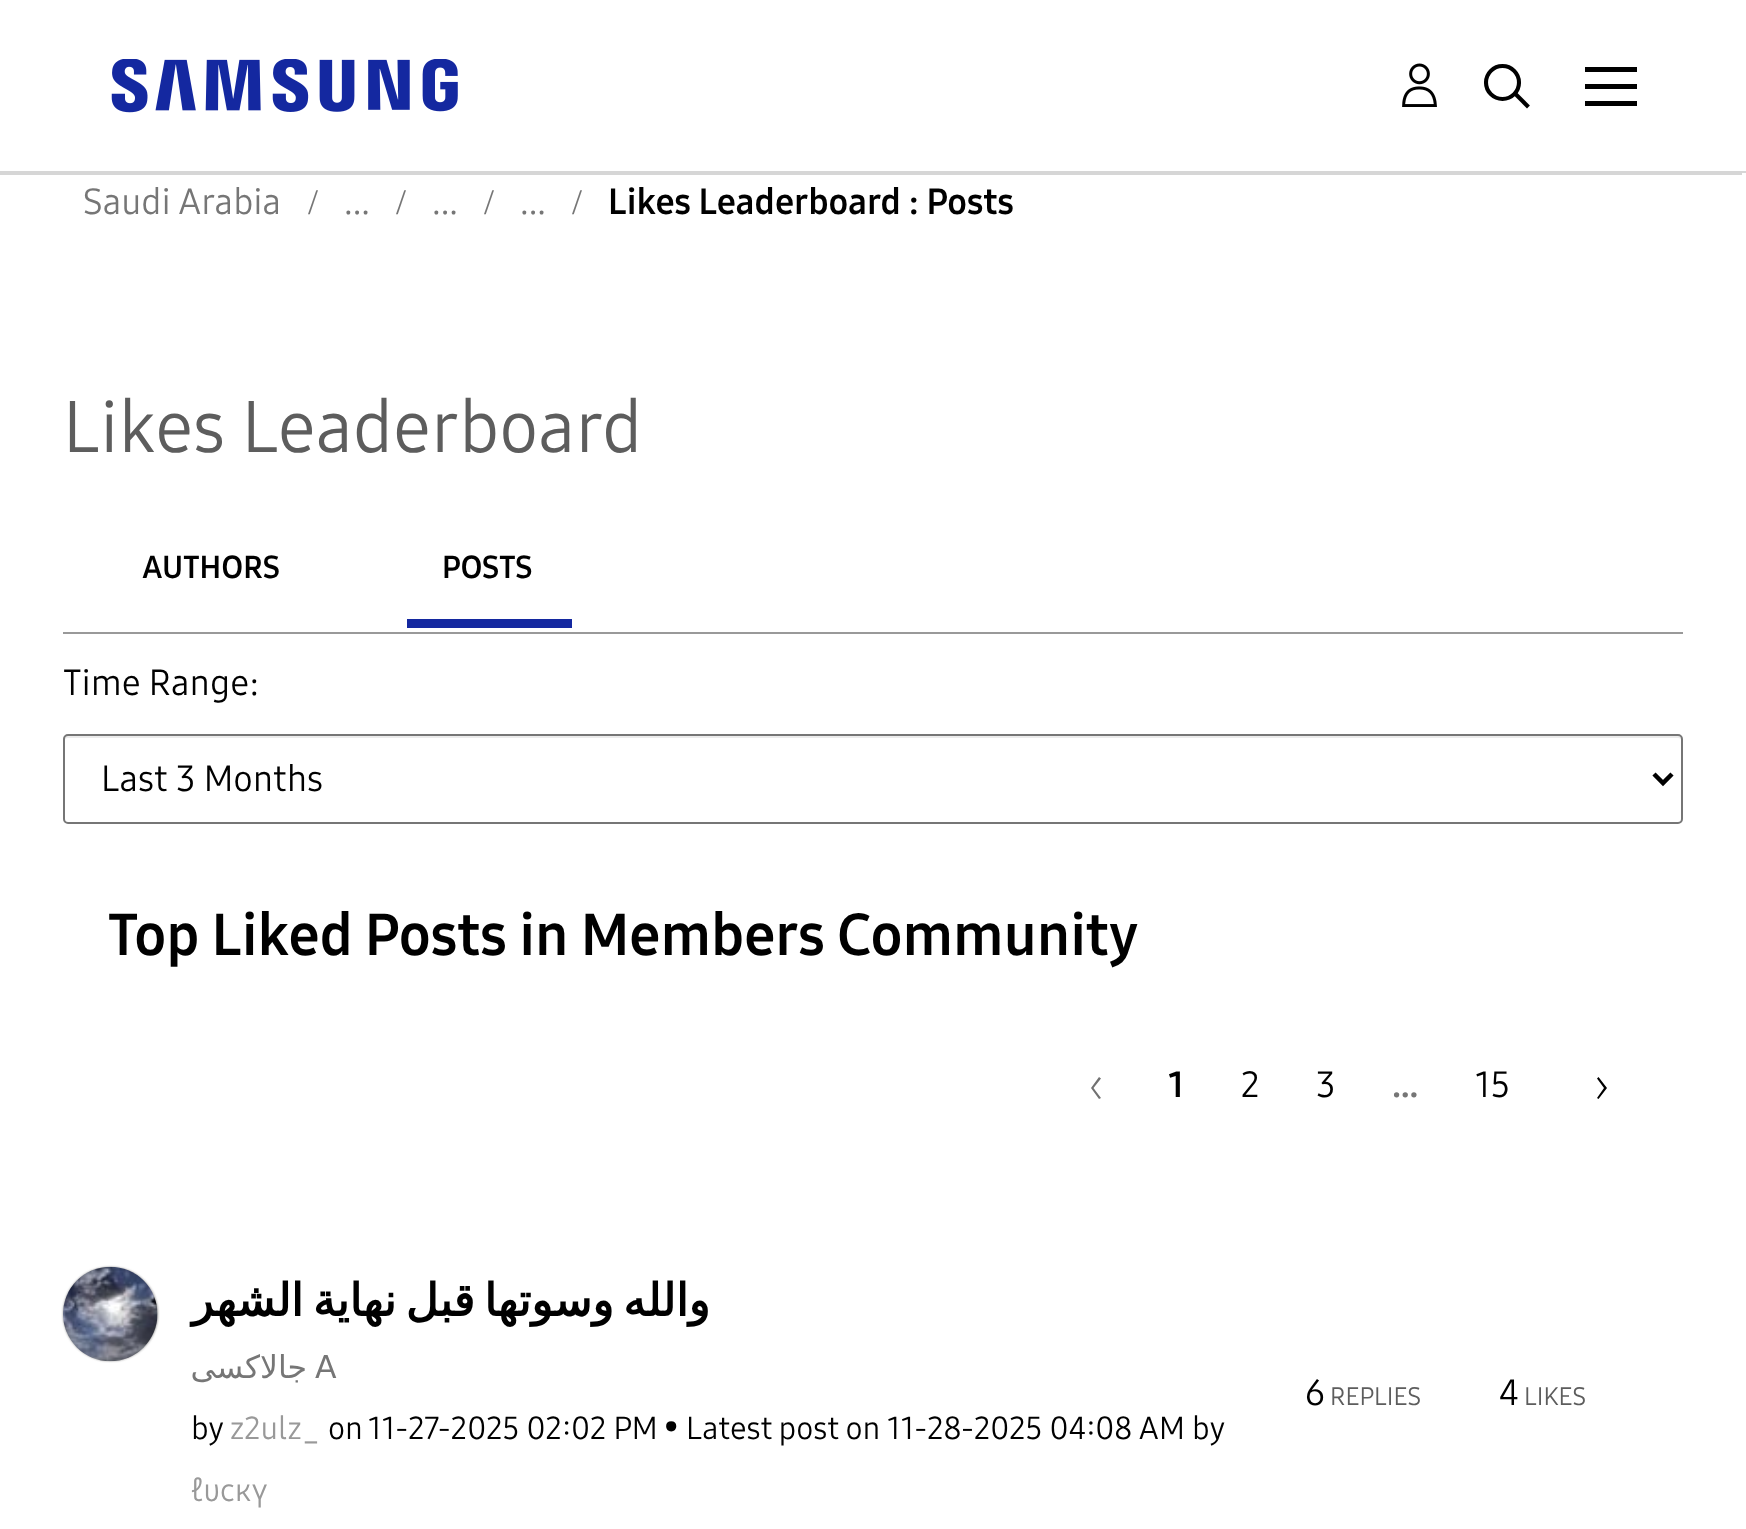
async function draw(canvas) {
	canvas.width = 1746;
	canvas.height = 1529;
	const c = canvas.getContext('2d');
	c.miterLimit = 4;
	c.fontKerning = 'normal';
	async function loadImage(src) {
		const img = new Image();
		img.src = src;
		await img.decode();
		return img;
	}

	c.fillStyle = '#fff';
	c.fillRect(0, 0, 1746, 1529);
	c.fillStyle = '#d6d6d6';
	c.fillRect(0, 171, 1746, 2);
	c.drawImage(await loadImage('img1.png'), 111, 59, 347, 54);
	c.drawImage(await loadImage('img2.png'), 1402, 63, 35, 44);
	c.beginPath();
	c.arc(1502.5, 82.5, 16.5, 0, 2 * Math.PI);
	c.strokeStyle = '#000';
	c.lineWidth = 4.1;
	c.stroke();
	c.beginPath();
	c.moveTo(1516.5, 95);
	c.lineTo(1527, 105.5);
	c.lineCap = 'square';
	c.stroke();
	c.fillStyle = '#000';
	c.beginPath();
	c.moveTo(1637, 101);
	c.lineTo(1637, 106);
	c.lineTo(1585, 106);
	c.lineTo(1585, 101);
	c.closePath();
	c.moveTo(1637, 84);
	c.lineTo(1637, 89);
	c.lineTo(1585, 89);
	c.lineTo(1585, 84);
	c.closePath();
	c.moveTo(1637, 67);
	c.lineTo(1637, 72);
	c.lineTo(1585, 72);
	c.lineTo(1585, 67);
	c.closePath();
	c.fill();
	c.fillStyle = '#d6d6d6';
	c.fillRect(0, 173, 1742, 2);
	c.font = '36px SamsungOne';
	c.fillStyle = '#767676';
	c.fillText('Saudi Arabia', 83, 214);
	c.font = '36px Liberation Serif';
	c.fillText('/', 308, 214);
	c.font = '36px SamsungOne';
	c.fillText('...', 344, 214);
	c.font = '36px Liberation Serif';
	c.fillText('/', 396, 214);
	c.font = '36px SamsungOne';
	c.fillText('...', 432, 214);
	c.font = '36px Liberation Serif';
	c.fillText('/', 484, 214);
	c.font = '36px SamsungOne';
	c.fillText('...', 520, 214);
	c.font = '36px Liberation Serif';
	c.fillText('/', 572, 214);
	c.font = 'bold 36px SamsungOne';
	c.fillStyle = '#000';
	c.fillText('Likes Leaderboard : Posts', 608, 214);
	c.font = '72px SamsungOne';
	c.fillStyle = '#5d5d5d';
	c.fillText('Likes Leaderboard', 63, 452);
	c.fillStyle = '#999';
	c.fillRect(63, 632, 1620, 2);
	c.font = 'bold 31.5px SamsungOne';
	c.fillStyle = '#000';
	c.fillText('AUTHORS', 142, 578);
	c.fillStyle = '#1428a0';
	c.fillRect(407, 619, 165, 9);
	c.fillStyle = '#000';
	c.fillText('POSTS', 442, 578);
	c.font = '36px SamsungOne';
	c.fillText('Time Range:', 63, 695);
	c.fillStyle = '#ececec';
	c.beginPath();
	c.moveTo(68, 738);
	c.lineTo(1678, 738);
	c.bezierCurveTo(1680, 738, 1681, 739, 1681, 740);
	c.lineTo(1681, 737);
	c.lineTo(1679, 736);
	c.lineTo(66, 736);
	c.lineTo(65, 738);
	c.lineTo(65, 740);
	c.bezierCurveTo(65, 739, 66, 738, 68, 738);
	c.closePath();
	c.fill();
	c.beginPath();
	c.roundRect(64, 735, 1618, 88, 4);
	c.strokeStyle = '#767676';
	c.lineWidth = 2;
	c.stroke();
	c.beginPath();
	c.moveTo(1654, 774);
	c.lineTo(1663, 783);
	c.lineTo(1672, 774);
	c.strokeStyle = '#000';
	c.lineWidth = 4.5;
	c.lineCap = 'butt';
	c.stroke();
	c.fillStyle = '#000';
	c.fillText('Last 3 Months', 101, 791);
	c.font = 'bold 58.5px SamsungOne';
	c.fillText('Top Liked Posts in Members Community', 108, 955);
	c.fillStyle = '#717171';
	c.beginPath();
	c.moveTo(1099, 1077);
	c.lineTo(1101, 1078.5);
	c.lineTo(1093.5, 1088);
	c.lineTo(1101, 1098);
	c.lineTo(1099, 1099);
	c.lineTo(1091, 1088);
	c.closePath();
	c.fill();
	c.font = 'bold 36px SamsungOne';
	c.fillStyle = '#000';
	c.fillText('1', 1168, 1097);
	c.font = '36px SamsungOne';
	c.fillText('2', 1241, 1097);
	c.fillText('3', 1316, 1097);
	c.font = 'bold 36px SamsungOne';
	c.fillStyle = '#767676';
	c.fillText('…', 1392, 1097);
	c.font = '36px SamsungOne';
	c.fillStyle = '#000';
	c.fillText('15', 1475, 1097);
	c.beginPath();
	c.moveTo(1598.5, 1077);
	c.lineTo(1607, 1088);
	c.lineTo(1598.5, 1099);
	c.lineTo(1597, 1098);
	c.lineTo(1604, 1088);
	c.lineTo(1597, 1078.5);
	c.closePath();
	c.fill();
	c.fillStyle = '#999';
	c.filter = 'blur(1px)';
	c.beginPath();
	c.roundRect(63, 1267, 95, 94, 47);
	c.fill();
	c.filter = 'none';
	c.drawImage(await loadImage('img3.png'), 63, 1266, 95, 96);
	c.wordSpacing = '-5px';
	c.direction = 'rtl';
	c.font = 'bold 45px DejaVu Sans';
	c.fillStyle = '#000';
	c.fillText('والله وسوتها قبل نهاية الشهر', 710, 1316);
	c.wordSpacing = '0px';
	c.font = '31.5px DejaVu Sans';
	c.fillStyle = '#767676';
	c.fillText('جالاكسى', 307, 1378);
	c.direction = 'ltr';
	c.fillText('A', 315, 1378);
	c.font = '31.5px SamsungOne';
	c.fillStyle = '#000';
	c.fillText('by', 191, 1439);
	c.fillStyle = '#999';
	c.fillText('z2ulz_', 230, 1439);
	c.fillStyle = '#000';
	for (const [text, x, y] of [
		['on', 328, 1439],
		['11-27-2025 02:02 PM', 368, 1439],
		['•', 664, 1437],
	]) {
		c.fillText(text, x, y);
	}
	c.wordSpacing = '-1px';
	c.fillText('Latest post on', 686, 1439);
	c.wordSpacing = '0px';
	c.fillText('11-28-2025 04:08 AM by', 887, 1439);
	c.fillStyle = '#999';
	c.fillText('ℓυcкү', 191, 1501);
	c.font = '36px SamsungOne';
	c.fillStyle = '#000';
	c.fillText('6', 1305, 1405);
	c.font = '25px SamsungOne';
	c.fillStyle = '#5d5d5d';
	c.fillText('REPLIES', 1330, 1405);
	c.font = '36px SamsungOne';
	c.fillStyle = '#000';
	c.fillText('4', 1499, 1405);
	c.font = '25px SamsungOne';
	c.fillStyle = '#5d5d5d';
	c.fillText('LIKES', 1524, 1405);
}

draw(document.querySelector('canvas'));
